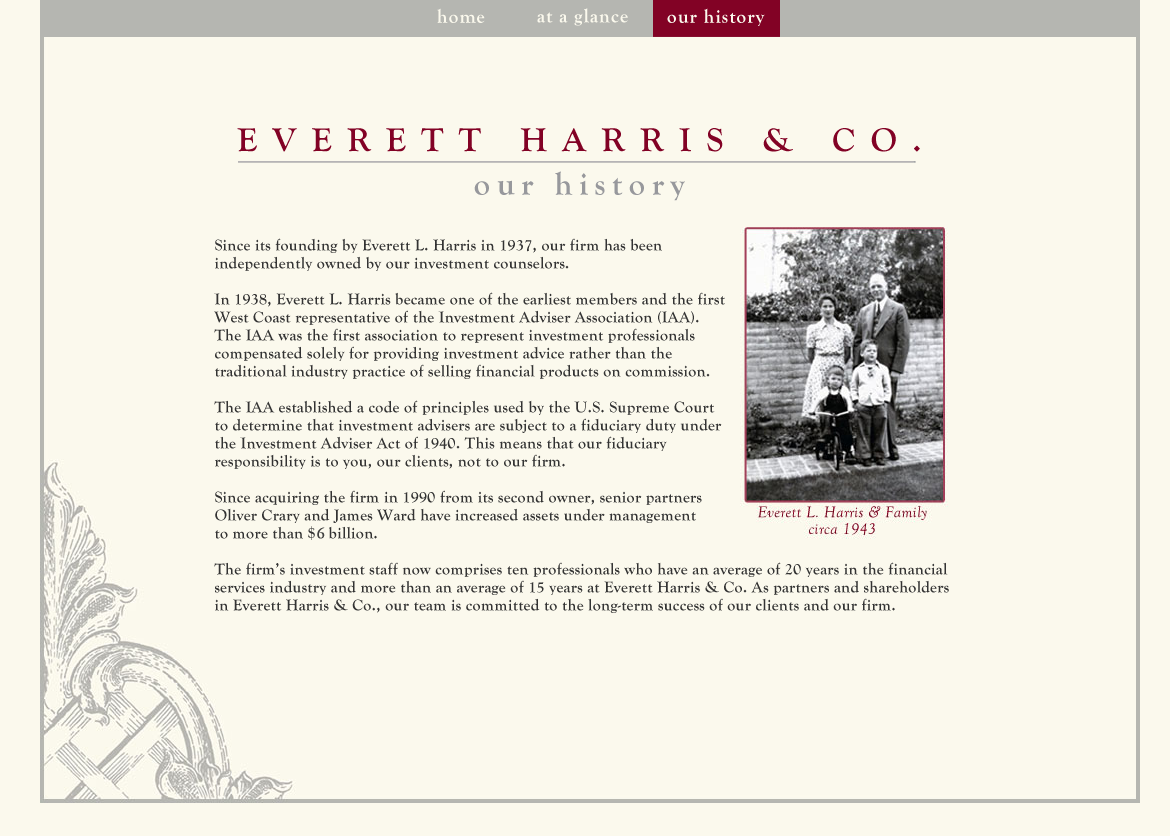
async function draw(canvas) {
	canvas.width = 1170;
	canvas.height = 836;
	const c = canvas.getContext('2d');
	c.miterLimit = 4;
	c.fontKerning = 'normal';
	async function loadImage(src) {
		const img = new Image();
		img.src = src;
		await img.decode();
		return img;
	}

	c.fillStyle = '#fbf9ed';
	c.fillRect(0, 0, 1170, 836);
	c.drawImage(await loadImage('img1.png'), 40, 0, 1100, 37);
	c.drawImage(await loadImage('img2.png'), 40, 37, 1100, 766);
	c.drawImage(await loadImage('img3.png'), 237, 128, 683, 73);
	c.drawImage(await loadImage('img5.png'), 214, 238, 735, 375);
	c.drawImage(await loadImage('img4.png'), 740, 227, 208, 314);
}

draw(document.querySelector('canvas'));
